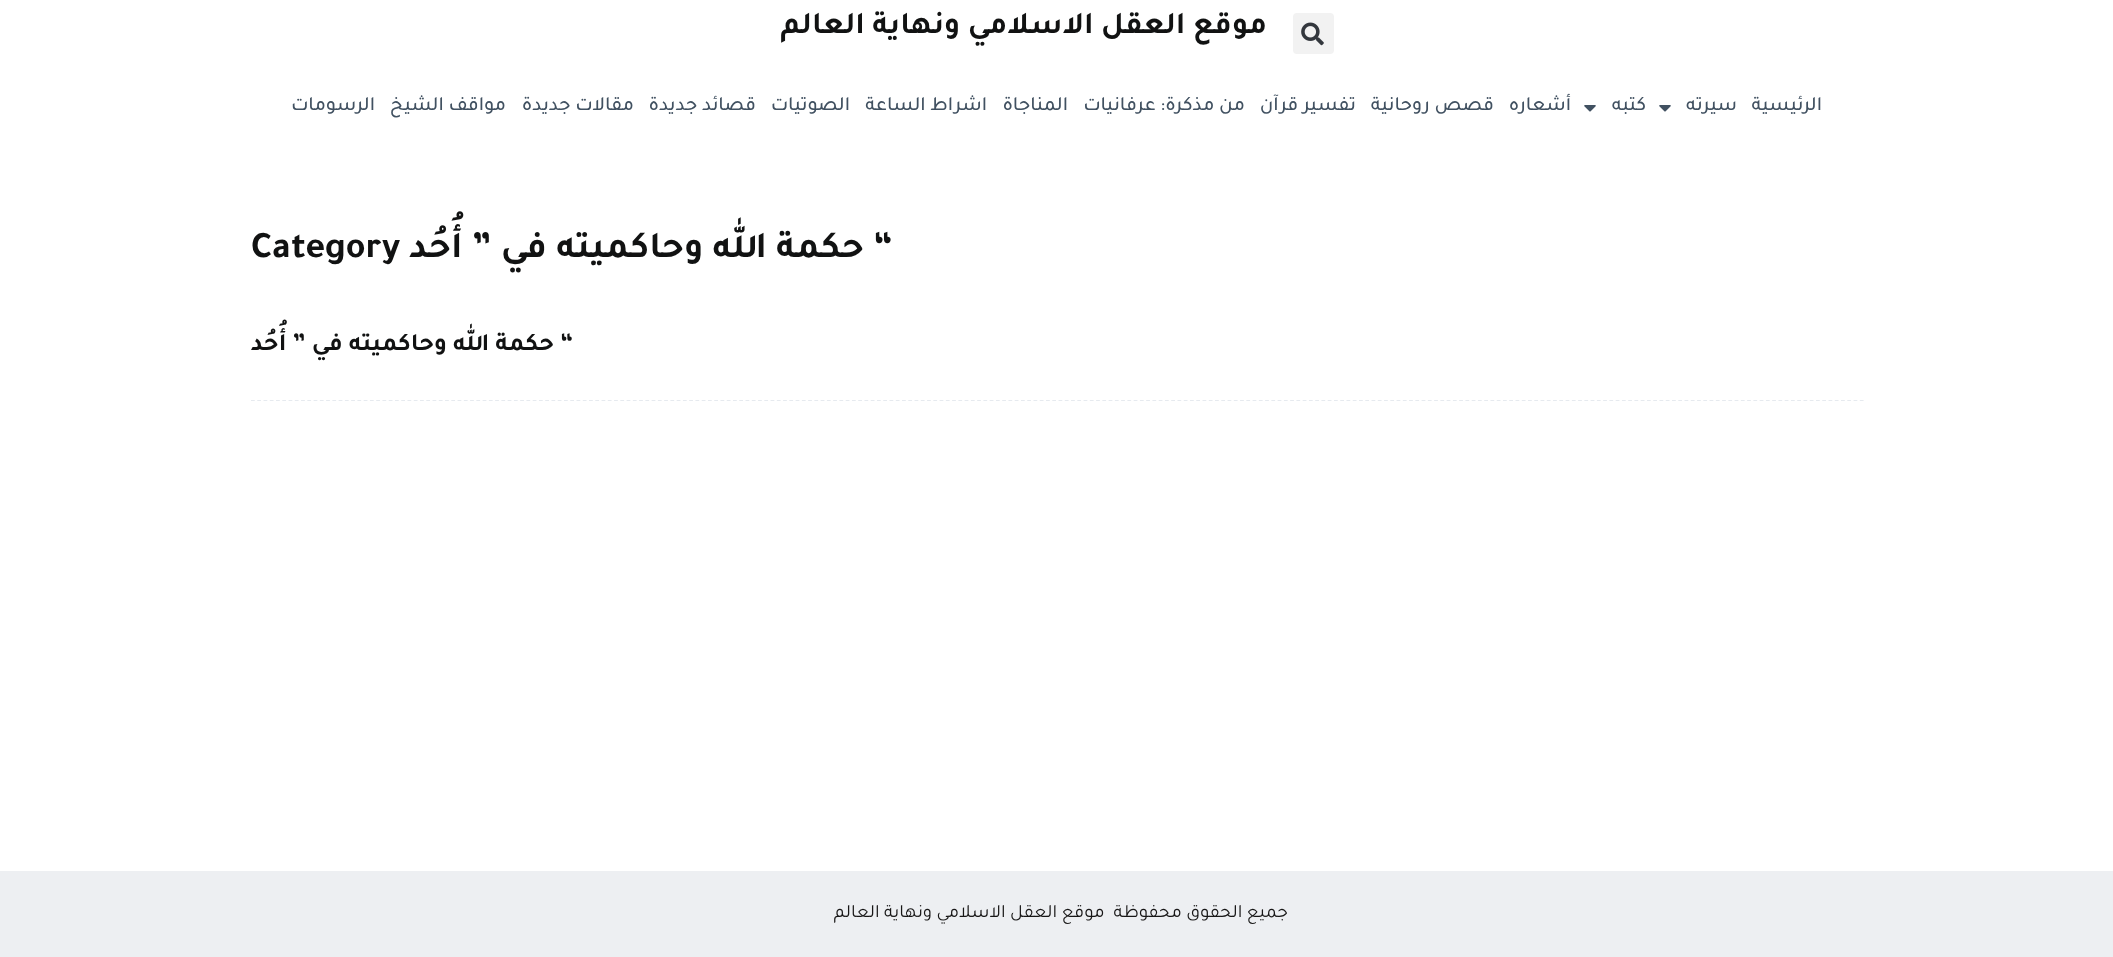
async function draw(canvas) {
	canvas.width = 2113;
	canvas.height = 957;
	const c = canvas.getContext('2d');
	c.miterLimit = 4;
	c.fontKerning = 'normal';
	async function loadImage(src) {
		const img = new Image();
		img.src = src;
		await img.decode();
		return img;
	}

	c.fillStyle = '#fff';
	c.fillRect(0, 0, 2113, 957);
	c.fillStyle = '#f2f2f2';
	c.beginPath();
	c.roundRect(1293, 13, 41, 41, 4);
	c.fill();
	c.drawImage(await loadImage('img1.png'), 1301, 22, 23, 24);
	c.direction = 'rtl';
	c.font = 'bold 31.25px Tajawal';
	c.fillStyle = '#111212';
	c.fillText('موقع العقل الاسلامي ونهاية العالم', 1267, 33);
	c.font = '500 20px Tajawal';
	c.fillStyle = '#415161';
	c.fillText('الرئيسية', 1822, 110);
	c.fillText('سيرته', 1737, 110);
	c.drawImage(await loadImage('img2.png'), 1659, 105, 12, 7);
	c.fillText('كتبه', 1646, 110);
	c.drawImage(await loadImage('img2.png'), 1584, 105, 12, 7);
	for (const [text, x, y] of [
		['أشعاره', 1571, 110],
		['قصص روحانية', 1494, 110],
		['تفسير قرآن', 1356, 110],
		['من مذكرة: عرفانيات', 1245, 110],
		['المناجاة', 1068, 110],
		['اشراط الساعة', 987, 110],
		['الصوتيات', 850, 110],
		['قصائد جديدة', 756, 110],
		['مقالات جديدة', 634, 110],
		['مواقف الشيخ', 506, 110],
		['الرسومات', 375, 110],
	]) {
		c.fillText(text, x, y);
	}
	c.direction = 'ltr';
	c.font = 'bold 37.5px Tajawal';
	c.fillStyle = '#111212';
	c.fillText('“', 873, 257);
	c.direction = 'rtl';
	c.fillText('حكمة الله وحاكميته في ” أُحُد', 864, 257);
	c.direction = 'ltr';
	c.fillText('Category', 251, 257);
	c.beginPath();
	c.moveTo(251, 400.5);
	c.lineTo(1864, 400.5);
	c.strokeStyle = '#e6eaef';
	c.lineWidth = 1.2;
	c.setLineDash([3.75, 2.51]);
	c.stroke();
	c.font = 'bold 25px Tajawal';
	c.fillText('“', 560, 350);
	c.direction = 'rtl';
	c.fillText('حكمة الله وحاكميته في ” أُحُد', 554, 350);
	c.fillStyle = '#edeff2';
	c.fillRect(0, 871, 2113, 86);
	c.font = '18.75px Tajawal';
	c.fillStyle = '#171616';
	c.fillText('جميع الحقوق محفوظة  موقع العقل الاسلامي ونهاية العالم', 1288, 917);
}

draw(document.querySelector('canvas'));
